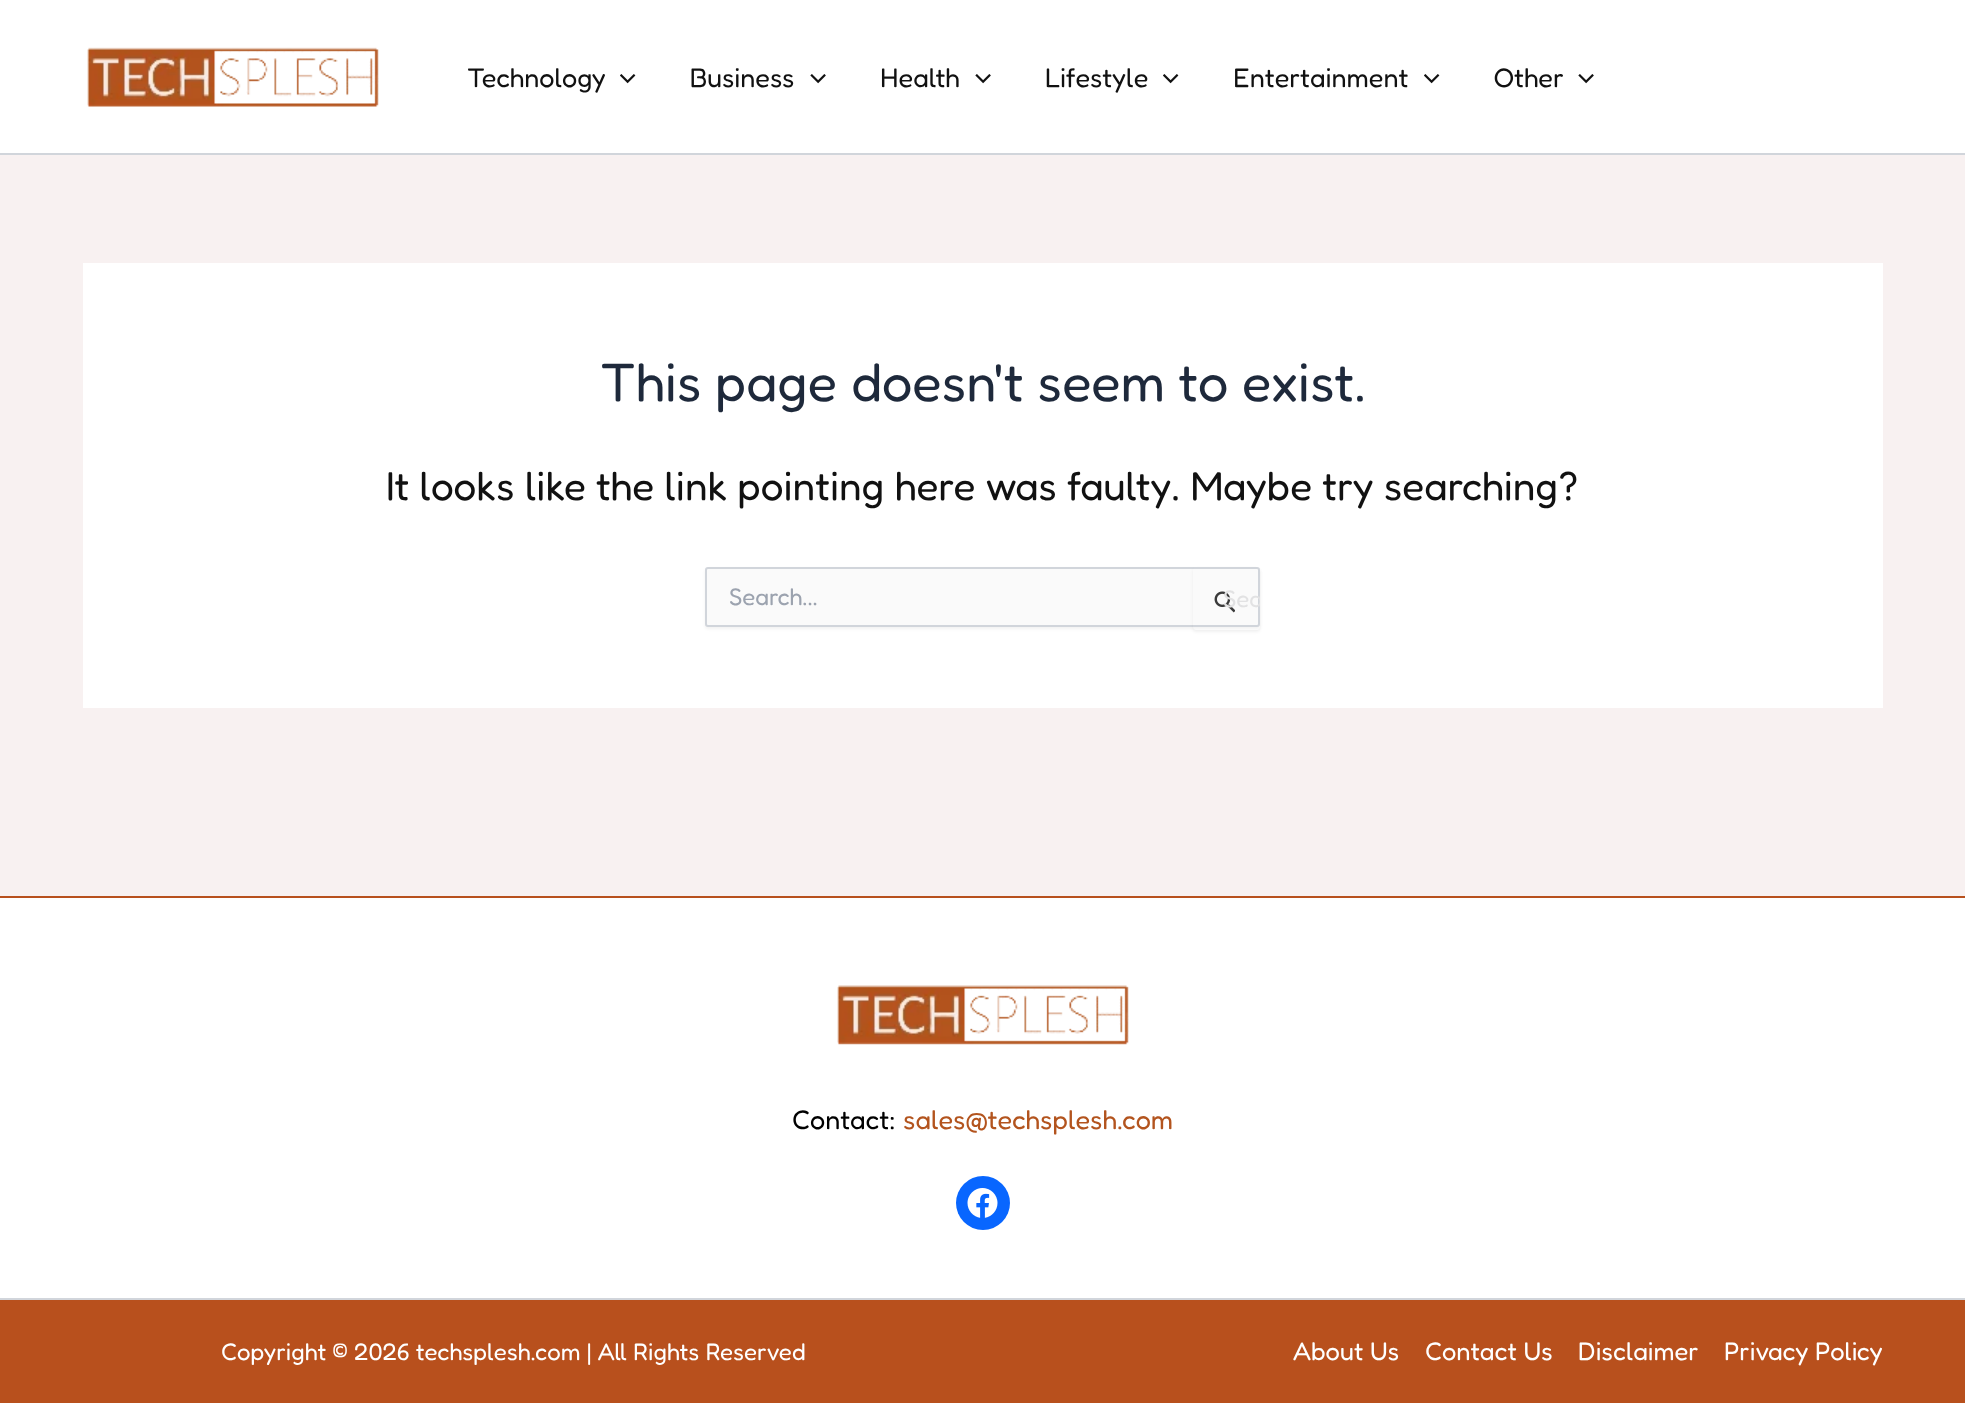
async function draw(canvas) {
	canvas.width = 1965;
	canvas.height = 1403;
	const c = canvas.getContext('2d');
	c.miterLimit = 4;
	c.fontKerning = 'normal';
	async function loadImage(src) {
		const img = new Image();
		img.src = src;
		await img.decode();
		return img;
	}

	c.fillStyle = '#f8f1f1';
	c.fillRect(0, 0, 1965, 1403);
	c.fillStyle = '#fff';
	c.fillRect(0, 0, 1965, 153);
	c.fillStyle = '#d1d5db';
	c.fillRect(0, 153, 1965, 2);
	c.drawImage(await loadImage('img1.png'), 87, 47, 292, 60);
	c.font = '300 27px Fredoka';
	c.fillStyle = '#111';
	c.fillText('Technology', 467, 87);
	c.drawImage(await loadImage('img2.png'), 620, 74, 16, 10);
	c.fillText('Business', 690, 87);
	c.drawImage(await loadImage('img3.png'), 810, 74, 16, 10);
	c.fillText('Health', 880, 87);
	c.drawImage(await loadImage('img3.png'), 975, 74, 16, 10);
	c.fillText('Lifestyle', 1045, 87);
	c.drawImage(await loadImage('img2.png'), 1163, 74, 16, 10);
	c.fillText('Entertainment', 1233, 87);
	c.drawImage(await loadImage('img2.png'), 1424, 74, 16, 10);
	c.fillText('Other', 1494, 87);
	c.drawImage(await loadImage('img3.png'), 1578, 74, 16, 10);
	c.fillStyle = '#fff';
	c.fillRect(83, 263, 1800, 445);
	c.font = '300 54px Fredoka';
	c.fillStyle = '#1e293b';
	c.fillText('This page doesn\'t seem to exist.', 600, 401);
	c.font = '300 40.5px Fredoka';
	c.fillStyle = '#111';
	c.fillText('It looks like the link pointing here was faulty. Maybe try searching?', 386, 500);
	c.fillStyle = '#0000000d';
	c.filter = 'blur(1.5px)';
	c.beginPath();
	c.roundRect(705, 569, 555, 60, 3);
	c.fill();
	c.filter = 'none';
	c.fillStyle = '#fafafa';
	c.beginPath();
	c.roundRect(706, 568, 553, 58, 2);
	c.fill();
	c.strokeStyle = '#d1d5db';
	c.lineWidth = 2;
	c.stroke();
	c.font = '300 24px Fredoka';
	c.fillStyle = '#9ca3af';
	c.fillText('Search...', 729, 605);
	c.drawImage(await loadImage('img4.png'), 1214, 591, 21, 22);
	c.save();
	c.beginPath();
	c.moveTo(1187, 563);
	c.lineTo(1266, 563);
	c.lineTo(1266, 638);
	c.lineTo(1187, 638);
	c.closePath();
	c.moveTo(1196, 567);
	c.lineTo(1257, 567);
	c.bezierCurveTo(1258.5, 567, 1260, 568.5, 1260, 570);
	c.lineTo(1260, 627);
	c.bezierCurveTo(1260, 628.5, 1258.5, 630, 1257, 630);
	c.lineTo(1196, 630);
	c.bezierCurveTo(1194.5, 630, 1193, 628.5, 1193, 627);
	c.lineTo(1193, 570);
	c.bezierCurveTo(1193, 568.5, 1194.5, 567, 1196, 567);
	c.closePath();
	c.clip('evenodd');
	c.fillStyle = '#0000000d';
	c.filter = 'blur(1.5px)';
	c.beginPath();
	c.roundRect(1193, 569, 67, 63, 3);
	c.fill();
	c.filter = 'none';
	c.restore();
	c.save();
	c.beginPath();
	c.roundRect(1193, 567, 67, 63, 3);
	c.clip();
	c.fillStyle = '#e2e2e3';
	c.fillText('Sea', 1223, 607);
	c.restore();
	c.fillStyle = '#fff';
	c.fillRect(0, 898, 1965, 400);
	c.fillStyle = '#b8501d';
	c.fillRect(0, 896, 1965, 2);
	c.drawImage(await loadImage('img5.png'), 837, 985, 292, 60);
	c.font = '300 27px Fredoka';
	c.fillStyle = '#000';
	c.fillText('Contact:', 792, 1129);
	c.fillStyle = '#b3541e';
	c.fillText('sales@techsplesh.com', 903, 1129);
	c.fillStyle = '#0866ff';
	c.beginPath();
	c.arc(983, 1203, 27, 0, 2 * Math.PI);
	c.fill();
	c.drawImage(await loadImage('img6.png'), 967, 1188, 31, 30);
	c.fillStyle = '#b8501d';
	c.fillRect(0, 1300, 1965, 103);
	c.fillStyle = '#d1d5db';
	c.fillRect(0, 1298, 1965, 2);
	c.font = '300 24px Fredoka';
	c.fillStyle = '#fff';
	c.fillText('Copyright © 2026 techsplesh.com | All Rights Reserved', 221, 1360);
	c.font = '300 25.5px Fredoka';
	for (const [text, x, y] of [
		['About Us', 1293, 1360],
		['Contact Us', 1425, 1360],
		['Disclaimer', 1578, 1360],
		['Privacy Policy', 1724, 1360],
	]) {
		c.fillText(text, x, y);
	}
}

draw(document.querySelector('canvas'));
